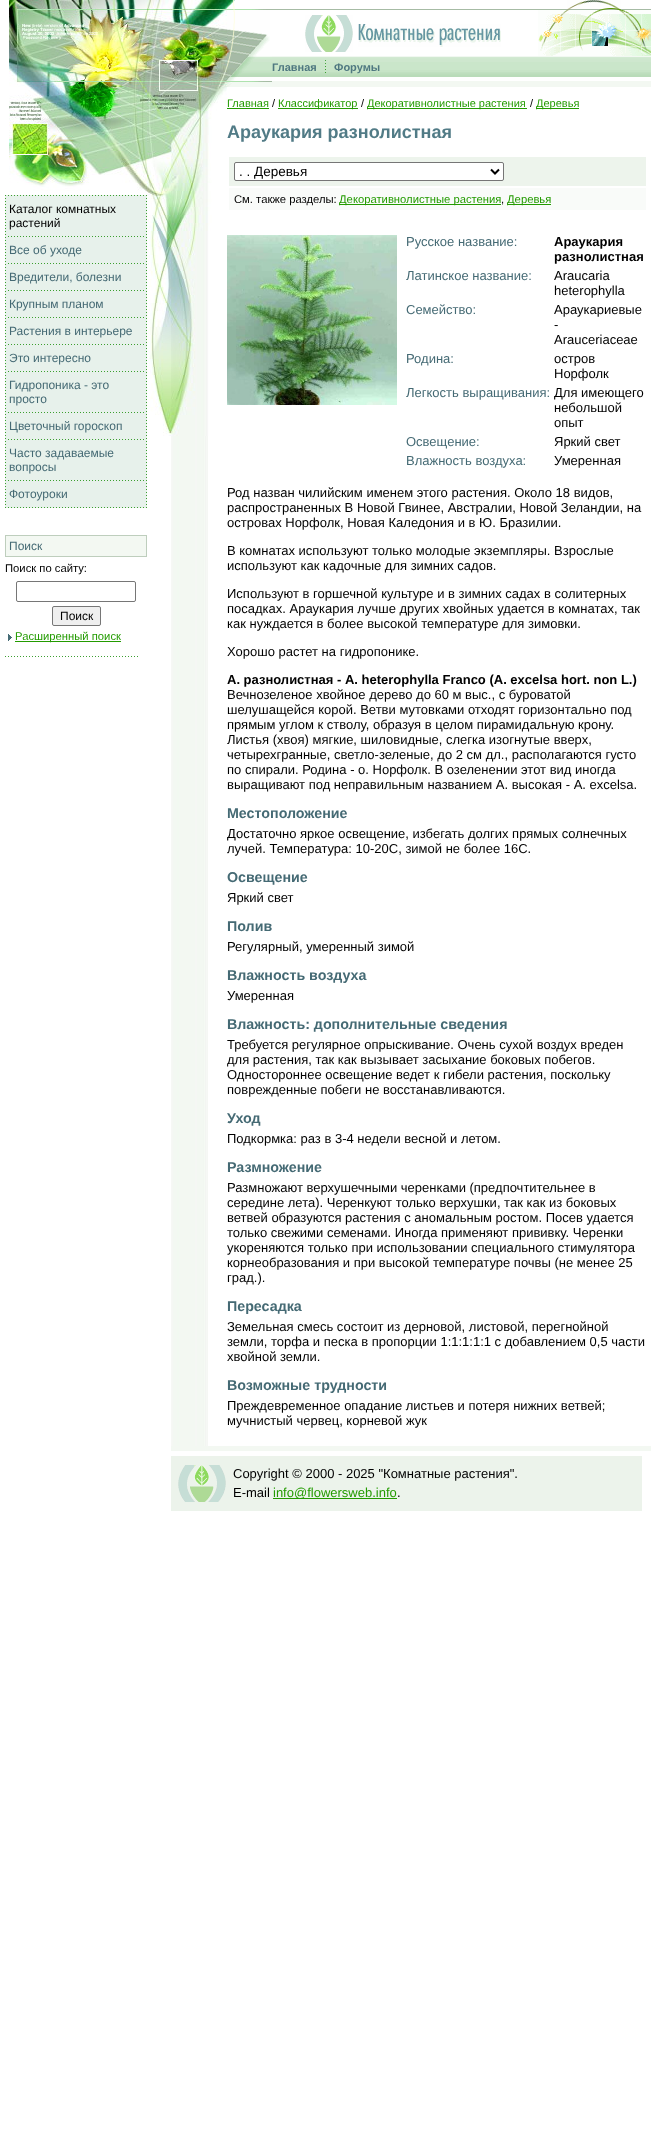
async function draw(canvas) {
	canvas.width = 651;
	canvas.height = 2149;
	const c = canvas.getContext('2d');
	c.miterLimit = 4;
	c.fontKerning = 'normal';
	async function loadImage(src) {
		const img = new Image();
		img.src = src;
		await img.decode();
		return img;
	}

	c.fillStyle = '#fff';
	c.fillRect(0, 0, 651, 2149);
	c.drawImage(await loadImage('img1.png'), 9, 0, 138, 87);
	c.drawImage(await loadImage('img2.png'), 147, 0, 80, 87);
	c.drawImage(await loadImage('img3.png'), 227, 0, 45, 10);
	c.fillStyle = '#a6bba4';
	c.fillRect(272, 9, 379, 1);
	c.drawImage(await loadImage('img4.png'), 567, 0, 54, 10);
	c.drawImage(await loadImage('img5.png'), 227, 10, 43, 46);
	c.drawImage(await loadImage('img6.png'), 305, 15, 48, 37);
	c.drawImage(await loadImage('img7.png'), 358, 24, 143, 23);
	c.drawImage(await loadImage('img8.png'), 538, 10, 113, 46);
	c.drawImage(await loadImage('img9.png'), 227, 56, 45, 21);
	c.drawImage(await loadImage('img10.png'), 272, 56, 360, 21);
	c.font = 'bold 11px Liberation Sans';
	c.fillStyle = '#4f7880';
	c.fillText('Главная', 272, 71);
	c.drawImage(await loadImage('img11.png'), 325, 60, 1, 13);
	c.fillText('Форумы', 334, 71);
	c.drawImage(await loadImage('img12.png'), 632, 56, 19, 21);
	c.drawImage(await loadImage('img13.png'), 227, 77, 45, 10);
	c.fillStyle = '#f3f8f2';
	c.fillRect(272, 81, 379, 6);
	c.drawImage(await loadImage('img14.png'), 9, 87, 138, 105);
	c.drawImage(await loadImage('img15.png'), 5, 195, 1, 313);
	c.fillStyle = '#e7f1eb';
	c.fillRect(6, 195, 140, 313);
	c.drawImage(await loadImage('img16.png'), 8, 195, 136, 1);
	c.font = '12px Liberation Sans';
	c.fillStyle = '#000';
	c.fillText('Каталог комнатных', 9, 213);
	c.fillText('растений', 9, 227);
	c.drawImage(await loadImage('img16.png'), 8, 236, 136, 1);
	c.fillStyle = '#456a74';
	c.fillText('Все об уходе', 9, 254);
	c.drawImage(await loadImage('img16.png'), 8, 263, 136, 1);
	c.fillText('Вредители, болезни', 9, 281);
	c.drawImage(await loadImage('img16.png'), 8, 290, 136, 1);
	c.fillText('Крупным планом', 9, 308);
	c.drawImage(await loadImage('img16.png'), 8, 317, 136, 1);
	c.fillText('Растения в интерьере', 9, 335);
	c.drawImage(await loadImage('img16.png'), 8, 344, 136, 1);
	c.fillText('Это интересно', 9, 362);
	c.drawImage(await loadImage('img16.png'), 8, 371, 136, 1);
	c.fillText('Гидропоника - это', 9, 389);
	c.fillText('просто', 9, 403);
	c.drawImage(await loadImage('img16.png'), 8, 412, 136, 1);
	c.fillText('Цветочный гороскоп', 9, 430);
	c.drawImage(await loadImage('img16.png'), 8, 439, 136, 1);
	c.fillText('Часто задаваемые', 9, 457);
	c.fillText('вопросы', 9, 471);
	c.drawImage(await loadImage('img16.png'), 8, 480, 136, 1);
	c.fillText('Фотоуроки', 9, 498);
	c.drawImage(await loadImage('img16.png'), 8, 507, 136, 1);
	c.drawImage(await loadImage('img15.png'), 146, 195, 1, 313);
	c.fillStyle = '#becebd';
	c.fillRect(5, 535, 142, 22);
	c.fillStyle = '#f3f8f2';
	c.fillRect(6, 536, 140, 20);
	c.fillStyle = '#456a74';
	c.fillText('Поиск', 9, 550);
	c.font = '11.25px Liberation Sans';
	c.fillStyle = '#000';
	c.fillText('Поиск по сайту:', 5, 572);
	c.beginPath();
	c.roundRect(16.5, 581.5, 119, 20, 1.5);
	c.strokeStyle = '#767676';
	c.stroke();
	c.fillStyle = '#efefef';
	c.beginPath();
	c.roundRect(52.5, 606.5, 48, 19, 1.5);
	c.fill();
	c.stroke();
	c.font = '12px Liberation Sans';
	c.fillStyle = '#000';
	c.fillText('Поиск', 60, 620);
	c.drawImage(await loadImage('img17.png'), 8, 634, 4, 7);
	c.fillStyle = '#239b00';
	c.fillRect(15, 641, 106, 1);
	c.font = '11.25px Liberation Sans';
	c.fillText('Расширенный поиск', 15, 640);
	c.drawImage(await loadImage('img18.png'), 5, 656, 133, 1);
	c.drawImage(await loadImage('img19.png'), 171, 436, 37, 1010);
	c.drawImage(await loadImage('img20.png'), 147, 87, 80, 349);
	c.font = '11px Liberation Sans';
	c.fillText('Главная', 227, 107);
	c.fillRect(227, 108, 42, 1);
	c.fillStyle = '#000';
	c.fillText('/', 272, 107);
	c.fillStyle = '#239b00';
	c.fillRect(278, 108, 80, 1);
	c.fillText('Классификатор', 278, 107);
	c.fillStyle = '#000';
	c.fillText('/', 361, 107);
	c.fillStyle = '#239b00';
	c.fillRect(367, 108, 160, 1);
	c.fillText('Декоративнолистные растения', 367, 107);
	c.fillStyle = '#000';
	c.fillText('/', 530, 107);
	c.fillStyle = '#239b00';
	c.fillRect(536, 108, 43, 1);
	c.fillText('Деревья', 536, 107);
	c.font = 'bold 18px Liberation Sans';
	c.fillStyle = '#517b86';
	c.fillText('Араукария разнолистная', 227, 138);
	c.fillStyle = '#edf4ec';
	c.fillRect(229, 157, 417, 29);
	c.fillStyle = '#fff';
	c.beginPath();
	c.roundRect(234.5, 162.5, 269, 18, 1.5);
	c.fill();
	c.stroke();
	c.beginPath();
	c.moveTo(491, 169.5);
	c.lineTo(495, 173.5);
	c.lineTo(499, 169.5);
	c.strokeStyle = '#000';
	c.lineWidth = 2;
	c.stroke();
	c.font = '13.5px Liberation Sans';
	c.fillStyle = '#000';
	c.fillText('. . Деревья', 239, 176);
	c.fillStyle = '#f9fbf9';
	c.fillRect(229, 188, 417, 22);
	c.font = '11.25px Liberation Sans';
	c.fillStyle = '#000';
	c.fillText('См. также разделы:', 234, 203);
	c.fillStyle = '#239b00';
	c.fillRect(339, 204, 162, 1);
	c.fillText('Декоративнолистные растения', 339, 203);
	c.fillStyle = '#000';
	c.fillText(',', 501, 203);
	c.fillStyle = '#239b00';
	c.fillRect(507, 204, 44, 1);
	c.fillText('Деревья', 507, 203);
	c.drawImage(await loadImage('img21.png'), 227, 235, 170, 170);
	c.font = '13px Liberation Sans';
	c.fillStyle = '#456a74';
	c.fillText('Русское название:', 406, 246);
	c.font = 'bold 13px Liberation Sans';
	c.fillStyle = '#000';
	c.fillText('Араукария', 554, 246);
	c.fillText('разнолистная', 554, 261);
	c.font = '13px Liberation Sans';
	c.fillStyle = '#456a74';
	c.fillText('Латинское название:', 406, 280);
	c.fillStyle = '#000';
	c.fillText('Araucaria', 554, 280);
	c.fillText('heterophylla', 554, 295);
	c.fillStyle = '#456a74';
	c.fillText('Семейство:', 406, 314);
	c.fillStyle = '#000';
	for (const [text, x, y] of [
		['Араукариевые', 554, 314],
		['-', 554, 329],
		['Arauceriaceae', 554, 344],
	]) {
		c.fillText(text, x, y);
	}
	c.fillStyle = '#456a74';
	c.fillText('Родина:', 406, 363);
	c.fillStyle = '#000';
	c.fillText('остров', 554, 363);
	c.fillText('Норфолк', 554, 378);
	c.fillStyle = '#456a74';
	c.fillText('Легкость выращивания:', 406, 397);
	c.fillStyle = '#000';
	for (const [text, x, y] of [
		['Для имеющего', 554, 397],
		['небольшой', 554, 412],
		['опыт', 554, 427],
	]) {
		c.fillText(text, x, y);
	}
	c.fillStyle = '#456a74';
	c.fillText('Освещение:', 406, 446);
	c.fillStyle = '#000';
	c.fillText('Яркий свет', 554, 446);
	c.fillStyle = '#456a74';
	c.fillText('Влажность воздуха:', 406, 465);
	c.fillStyle = '#000';
	for (const [text, x, y] of [
		['Умеренная', 554, 465],
		['Род назван чилийским именем этого растения. Около 18 видов,', 227, 497],
		['распространенных В Новой Гвинее, Австралии, Новой Зеландии, на', 227, 512],
		['островах Норфолк, Новая Каледония и в Ю. Бразилии.', 227, 527],
		['В комнатах используют только молодые экземпляры. Взрослые', 227, 555],
		['используют как кадочные для зимних садов.', 227, 570],
		['Используют в горшечной культуре и в зимних садах в солитерных', 227, 598],
		['посадках. Араукария лучше других хвойных удается в комнатах, так', 227, 613],
		['как нуждается в более высокой температуре для зимовки.', 227, 628],
		['Хорошо растет на гидропонике.', 227, 656],
	]) {
		c.fillText(text, x, y);
	}
	c.font = 'bold 13px Liberation Sans';
	c.fillText('А. разнолистная - A. heterophylla Franco (A. excelsa hort. non L.)', 227, 684);
	c.font = '13px Liberation Sans';
	for (const [text, x, y] of [
		['Вечнозеленое хвойное дерево до 60 м выс., с буроватой', 227, 699],
		['шелушащейся корой. Ветви мутовками отходят горизонтально под', 227, 714],
		['прямым углом к стволу, образуя в целом пирамидальную крону.', 227, 729],
		['Листья (хвоя) мягкие, шиловидные, слегка изогнутые вверх,', 227, 744],
		['четырехгранные, светло-зеленые, до 2 см дл., располагаются густо', 227, 759],
		['по спирали. Родина - о. Норфолк. В озеленении этот вид иногда', 227, 774],
		['выращивают под неправильным названием А. высокая - A. excelsa.', 227, 789],
	]) {
		c.fillText(text, x, y);
	}
	c.font = 'bold 14.25px Liberation Sans';
	c.fillStyle = '#456a74';
	c.fillText('Местоположение', 227, 818);
	c.font = '13px Liberation Sans';
	c.fillStyle = '#000';
	c.fillText('Достаточно яркое освещение, избегать долгих прямых солнечных', 227, 838);
	c.fillText('лучей. Температура: 10-20С, зимой не более 16С.', 227, 853);
	c.font = 'bold 14.25px Liberation Sans';
	c.fillStyle = '#456a74';
	c.fillText('Освещение', 227, 882);
	c.font = '13px Liberation Sans';
	c.fillStyle = '#000';
	c.fillText('Яркий свет', 227, 902);
	c.font = 'bold 14.25px Liberation Sans';
	c.fillStyle = '#456a74';
	c.fillText('Полив', 227, 931);
	c.font = '13px Liberation Sans';
	c.fillStyle = '#000';
	c.fillText('Регулярный, умеренный зимой', 227, 951);
	c.font = 'bold 14.25px Liberation Sans';
	c.fillStyle = '#456a74';
	c.fillText('Влажность воздуха', 227, 980);
	c.font = '13px Liberation Sans';
	c.fillStyle = '#000';
	c.fillText('Умеренная', 227, 1000);
	c.font = 'bold 14.25px Liberation Sans';
	c.fillStyle = '#456a74';
	c.fillText('Влажность: дополнительные сведения', 227, 1029);
	c.font = '13px Liberation Sans';
	c.fillStyle = '#000';
	for (const [text, x, y] of [
		['Требуется регулярное опрыскивание. Очень сухой воздух вреден', 227, 1049],
		['для растения, так как вызывает засыхание боковых побегов.', 227, 1064],
		['Одностороннее освещение ведет к гибели растения, поскольку', 227, 1079],
		['поврежденные побеги не восстанавливаются.', 227, 1094],
	]) {
		c.fillText(text, x, y);
	}
	c.font = 'bold 14.25px Liberation Sans';
	c.fillStyle = '#456a74';
	c.fillText('Уход', 227, 1123);
	c.font = '13px Liberation Sans';
	c.fillStyle = '#000';
	c.fillText('Подкормка: раз в 3-4 недели весной и летом.', 227, 1143);
	c.font = 'bold 14.25px Liberation Sans';
	c.fillStyle = '#456a74';
	c.fillText('Размножение', 227, 1172);
	c.font = '13px Liberation Sans';
	c.fillStyle = '#000';
	for (const [text, x, y] of [
		['Размножают верхушечными черенками (предпочтительнее в', 227, 1192],
		['середине лета). Черенкуют только верхушки, так как из боковых', 227, 1207],
		['ветвей образуются растения с аномальным ростом. Посев удается', 227, 1222],
		['только свежими семенами. Иногда применяют прививку. Черенки', 227, 1237],
		['укореняются только при использовании специального стимулятора', 227, 1252],
		['корнеобразования и при высокой температуре почвы (не менее 25', 227, 1267],
		['град.).', 227, 1282],
	]) {
		c.fillText(text, x, y);
	}
	c.font = 'bold 14.25px Liberation Sans';
	c.fillStyle = '#456a74';
	c.fillText('Пересадка', 227, 1311);
	c.font = '13px Liberation Sans';
	c.fillStyle = '#000';
	for (const [text, x, y] of [
		['Земельная смесь состоит из дерновой, листовой, перегнойной', 227, 1331],
		['земли, торфа и песка в пропорции 1:1:1:1:1 с добавлением 0,5 части', 227, 1346],
		['хвойной земли.', 227, 1361],
	]) {
		c.fillText(text, x, y);
	}
	c.font = 'bold 14.25px Liberation Sans';
	c.fillStyle = '#456a74';
	c.fillText('Возможные трудности', 227, 1390);
	c.font = '13px Liberation Sans';
	c.fillStyle = '#000';
	c.fillText('Преждевременное опадание листьев и потеря нижних ветвей;', 227, 1410);
	c.fillText('мучнистый червец, корневой жук', 227, 1425);
	c.fillStyle = '#f3f8f2';
	c.fillRect(171, 1446, 480, 5);
	c.fillStyle = '#ecf3eb';
	c.fillRect(171, 1456, 471, 55);
	c.drawImage(await loadImage('img22.png'), 178, 1465, 48, 37);
	c.fillStyle = '#000';
	c.fillText('Copyright © 2000 - 2025 "Комнатные растения".', 233, 1478);
	c.fillText('E-mail', 233, 1497);
	c.fillStyle = '#239b00';
	c.fillRect(273, 1498, 124, 1);
	c.fillText('info@flowersweb.info', 273, 1497);
	c.fillStyle = '#000';
	c.fillText('.', 397, 1497);
}

draw(document.querySelector('canvas'));
